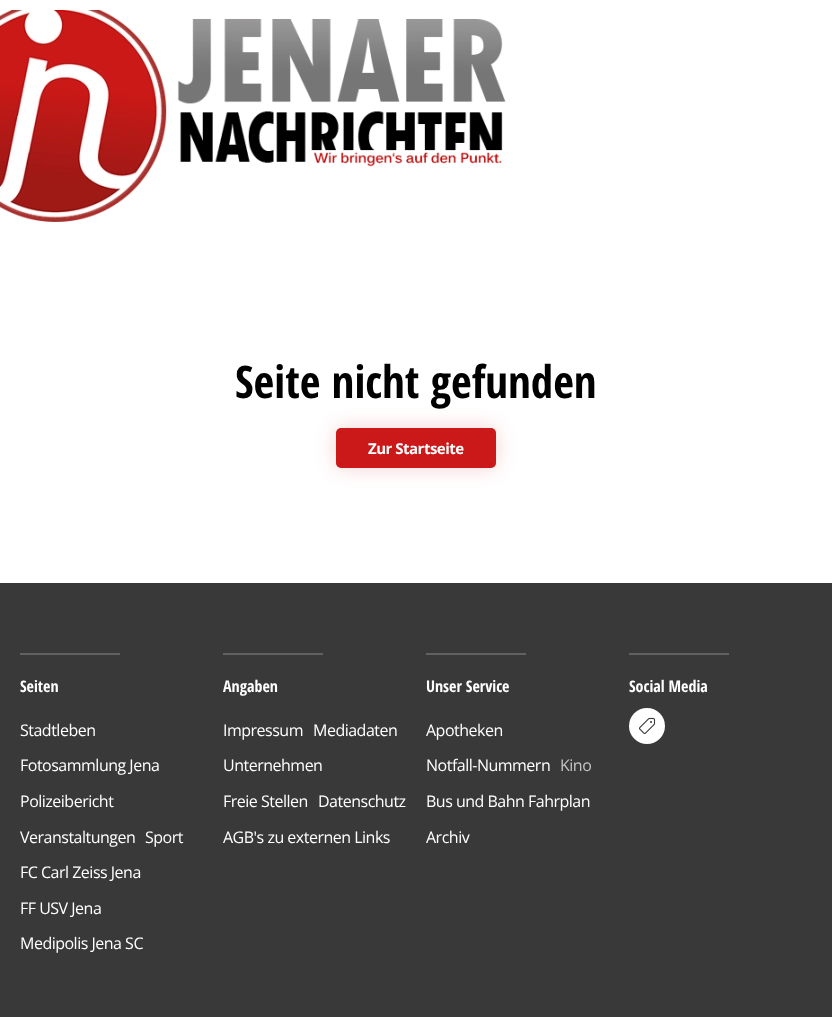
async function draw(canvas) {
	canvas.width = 832;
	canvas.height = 1017;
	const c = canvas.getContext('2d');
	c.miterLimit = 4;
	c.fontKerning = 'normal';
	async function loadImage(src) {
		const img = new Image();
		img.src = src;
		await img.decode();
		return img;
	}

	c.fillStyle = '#fff';
	c.fillRect(0, 0, 832, 1017);
	c.drawImage(await loadImage('img1.png'), 0, 10, 506, 212);
	c.font = 'bold 45px Open Sans Condensed';
	c.fillStyle = '#000';
	c.fillText('Seite nicht gefunden', 235, 398);
	c.fillStyle = '#cb181933';
	c.filter = 'blur(10px)';
	c.beginPath();
	c.roundRect(336, 428, 160, 40, 5);
	c.fill();
	c.filter = 'none';
	c.fillStyle = '#cb1819';
	c.beginPath();
	c.roundRect(336, 428, 160, 40, 5);
	c.fill();
	c.letterSpacing = '-0.5px';
	c.font = 'bold 15px Open Sans';
	c.fillStyle = '#fff';
	c.fillText('Zur Startseite', 368, 454);
	c.fillStyle = '#393939';
	c.fillRect(0, 583, 832, 434);
	c.fillStyle = '#616161';
	c.fillRect(20, 653, 100, 2);
	c.letterSpacing = '0px';
	c.font = 'bold 16px Open Sans Condensed';
	c.fillStyle = '#fff';
	c.fillText('Seiten', 20, 692);
	c.letterSpacing = '-0.5px';
	c.font = '16px Open Sans';
	for (const [text, x, y] of [
		['Stadtleben', 20, 736],
		['Fotosammlung Jena', 20, 771],
		['Polizeibericht', 20, 807],
		['Veranstaltungen', 20, 843],
		['Sport', 145, 843],
		['FC Carl Zeiss Jena', 20, 878],
		['FF USV Jena', 20, 914],
		['Medipolis Jena SC', 20, 949],
	]) {
		c.fillText(text, x, y);
	}
	c.fillStyle = '#616161';
	c.fillRect(223, 653, 100, 2);
	c.letterSpacing = '0px';
	c.font = 'bold 16px Open Sans Condensed';
	c.fillStyle = '#fff';
	c.fillText('Angaben', 223, 692);
	c.letterSpacing = '-0.5px';
	c.font = '16px Open Sans';
	for (const [text, x, y] of [
		['Impressum', 223, 736],
		['Mediadaten', 313, 736],
		['Unternehmen', 223, 771],
		['Freie Stellen', 223, 807],
		['Datenschutz', 318, 807],
		['AGB\'s zu externen Links', 223, 843],
	]) {
		c.fillText(text, x, y);
	}
	c.fillStyle = '#616161';
	c.fillRect(426, 653, 100, 2);
	c.letterSpacing = '0px';
	c.font = 'bold 16px Open Sans Condensed';
	c.fillStyle = '#fff';
	c.fillText('Unser Service', 426, 692);
	c.letterSpacing = '-0.5px';
	c.font = '16px Open Sans';
	c.fillText('Apotheken', 426, 736);
	c.fillText('Notfall-Nummern', 426, 771);
	c.fillStyle = '#c4c4c4';
	c.fillText('Kino', 560, 771);
	c.fillStyle = '#fff';
	c.fillText('Bus und Bahn Fahrplan', 426, 807);
	c.fillText('Archiv', 426, 843);
	c.fillStyle = '#616161';
	c.fillRect(629, 653, 100, 2);
	c.letterSpacing = '0px';
	c.font = 'bold 16px Open Sans Condensed';
	c.fillStyle = '#fff';
	c.fillText('Social Media', 629, 692);
	c.beginPath();
	c.arc(647, 726, 18, 0, 2 * Math.PI);
	c.fill();
	c.drawImage(await loadImage('img2.png'), 639, 717, 17, 17);
}

draw(document.querySelector('canvas'));
